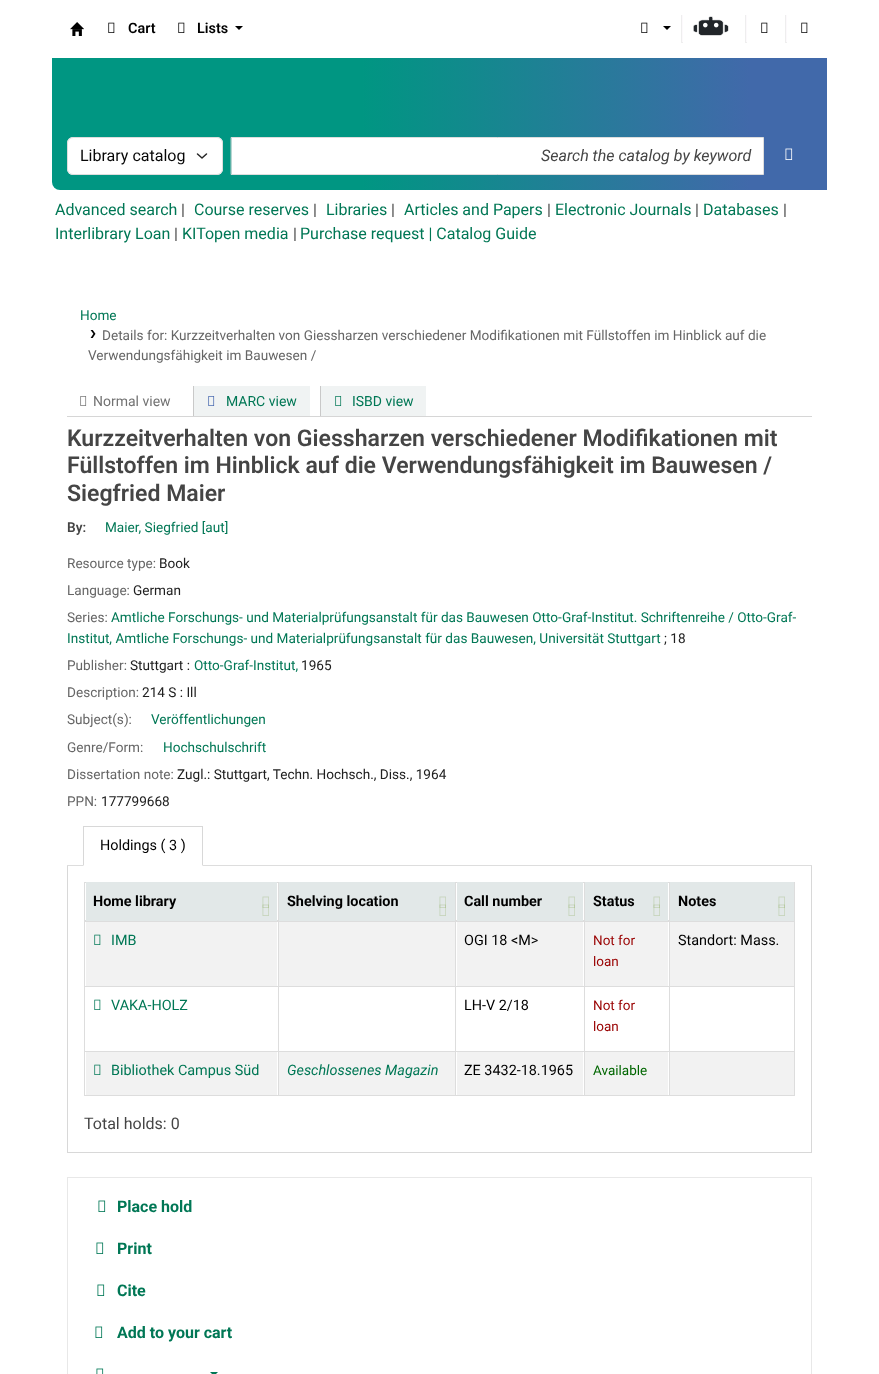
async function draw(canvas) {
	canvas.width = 879;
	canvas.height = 1374;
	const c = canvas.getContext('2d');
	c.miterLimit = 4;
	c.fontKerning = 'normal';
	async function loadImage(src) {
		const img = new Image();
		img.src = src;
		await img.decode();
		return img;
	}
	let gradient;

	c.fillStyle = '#fff';
	c.fillRect(0, 0, 879, 1374);
	c.drawImage(await loadImage('img1.png'), 70, 22, 14, 14);
	c.drawImage(await loadImage('img2.png'), 108, 22, 7, 11);
	c.font = '600 14.4px Roboto';
	c.fillStyle = '#000';
	c.fillText('Cart', 128, 33);
	c.drawImage(await loadImage('img2.png'), 178, 22, 7, 11);
	c.fillText('Lists', 197, 33);
	c.beginPath();
	c.moveTo(235, 26);
	c.lineTo(243, 26);
	c.lineTo(239, 30);
	c.closePath();
	c.fill();
	c.drawImage(await loadImage('img2.png'), 641, 22, 7, 11);
	c.beginPath();
	c.moveTo(663, 26);
	c.lineTo(671, 26);
	c.lineTo(667, 30);
	c.closePath();
	c.fill();
	for (const [x, y, w, h, color] of [
		[682, 15, 1, 28, '#fcf9fc'],
		[681, 42, 2, 1, '#eee'],
		[681, 15, 1, 28, '#eee'],
	]) {
		c.fillStyle = color;
		c.fillRect(x, y, w, h);
	}
	c.drawImage(await loadImage('img3.png'), 693, 16, 36, 20);
	for (const [x, y, w, h, color] of [
		[746, 15, 1, 28, '#fcf9fc'],
		[745, 42, 2, 1, '#eee'],
		[745, 15, 1, 28, '#eee'],
	]) {
		c.fillStyle = color;
		c.fillRect(x, y, w, h);
	}
	c.drawImage(await loadImage('img2.png'), 761, 22, 7, 11);
	for (const [x, y, w, h, color] of [
		[786, 15, 1, 28, '#fcf9fc'],
		[785, 42, 2, 1, '#eee'],
		[785, 15, 1, 28, '#eee'],
	]) {
		c.fillStyle = color;
		c.fillRect(x, y, w, h);
	}
	c.drawImage(await loadImage('img2.png'), 801, 22, 7, 11);
	gradient = c.createLinearGradient(52, 90, 827, 90);
	gradient.addColorStop(0.4, '#009682');
	gradient.addColorStop(0.9, '#4169aa');
	c.fillStyle = gradient;
	c.fillRect(52, 58, 775, 64);
	gradient = c.createLinearGradient(52, 156, 827, 156);
	gradient.addColorStop(0.4, '#009682');
	gradient.addColorStop(0.9, '#4169aa');
	c.fillStyle = gradient;
	c.beginPath();
	c.roundRect(52, 122, 775, 68, [0, 0, 0, 8]);
	c.fill();
	c.fillStyle = '#fff';
	c.beginPath();
	c.roundRect(67, 137, 156, 38, 6);
	c.fill();
	c.beginPath();
	c.moveTo(197.5, 154);
	c.lineTo(202, 158);
	c.lineTo(206.5, 154);
	c.strokeStyle = '#252525';
	c.lineWidth = 1.5;
	c.lineCap = 'round';
	c.lineJoin = 'round';
	c.stroke();
	c.beginPath();
	c.roundRect(67.5, 137.5, 155, 37, 5.5);
	c.strokeStyle = '#ddd';
	c.lineWidth = 1;
	c.lineJoin = 'miter';
	c.stroke();
	c.font = '16px Roboto';
	c.fillStyle = '#070707';
	c.fillText('Library catalog', 80, 161);
	c.fillStyle = '#fff';
	c.beginPath();
	c.rect(231.5, 137.5, 532, 37);
	c.fill();
	c.stroke();
	c.font = 'italic 16px Roboto';
	c.fillStyle = '#454545';
	c.fillText('Search the catalog by keyword', 541, 161);
	c.drawImage(await loadImage('img4.png'), 785, 148, 8, 12);
	c.font = '16px Roboto';
	c.fillStyle = '#075';
	c.fillText('Advanced search', 55, 215);
	c.fillStyle = '#454545';
	c.fillText('|', 181, 215);
	c.fillStyle = '#075';
	c.fillText('Course reserves', 194, 215);
	c.fillStyle = '#454545';
	c.fillText('|', 313, 215);
	c.fillStyle = '#075';
	c.fillText('Libraries', 326, 215);
	c.fillStyle = '#454545';
	c.fillText('|', 391, 215);
	c.fillStyle = '#075';
	c.fillText('Articles and Papers', 404, 215);
	c.fillStyle = '#454545';
	c.fillText('|', 547, 215);
	c.fillStyle = '#075';
	c.fillText('Electronic Journals', 555, 215);
	c.fillStyle = '#454545';
	c.fillText('|', 695, 215);
	c.fillStyle = '#075';
	c.fillText('Databases', 703, 215);
	c.fillStyle = '#454545';
	c.fillText('|', 783, 215);
	c.fillStyle = '#075';
	c.fillText('Interlibrary Loan', 55, 239);
	c.fillStyle = '#454545';
	c.fillText('|', 174, 239);
	c.fillStyle = '#075';
	c.fillText('KITopen media', 182, 239);
	c.fillStyle = '#454545';
	c.fillText('|', 293, 239);
	c.fillStyle = '#075';
	c.fillText('Purchase request | Catalog Guide', 300, 239);
	c.font = '13.6px Roboto';
	c.fillText('Home', 80, 320);
	c.drawImage(await loadImage('img5.png'), 90, 330, 6, 8);
	c.fillStyle = '#666';
	c.fillText('Details for: Kurzzeitverhalten von Giessharzen verschiedener Modifikationen mit Füllstoffen im Hinblick auf die', 102, 340);
	c.fillText('Verwendungsfähigkeit im Bauwesen /', 88, 360);
	c.fillStyle = '#d6d6d6';
	c.fillRect(67, 416, 745, 1);
	c.drawImage(await loadImage('img6.png'), 80, 396, 7, 10);
	c.font = '14px Roboto';
	c.fillStyle = '#727272';
	c.fillText('Normal view', 93, 406);
	c.fillStyle = '#f0f3f3';
	c.fillRect(194, 386, 116, 30);
	c.fillStyle = '#c9c9c9';
	c.fillRect(193, 386, 1, 30);
	c.drawImage(await loadImage('img7.png'), 208, 396, 7, 10);
	c.fillStyle = '#075';
	c.fillText('MARC view', 226, 406);
	c.fillStyle = '#f0f3f3';
	c.fillRect(321, 386, 105, 30);
	c.fillStyle = '#c9c9c9';
	c.fillRect(320, 386, 1, 30);
	c.drawImage(await loadImage('img8.png'), 335, 396, 7, 10);
	c.fillStyle = '#075';
	c.fillText('ISBD view', 352, 406);
	c.font = '600 23.05px Roboto';
	c.fillStyle = '#454545';
	for (const [text, x, y] of [
		['Kurzzeitverhalten von Giessharzen verschiedener Modifikationen mit', 67, 446],
		['Füllstoffen im Hinblick auf die Verwendungsfähigkeit im Bauwesen /', 67, 473],
		['Siegfried Maier', 67, 501],
	]) {
		c.fillText(text, x, y);
	}
	c.font = '600 13.6px Roboto';
	c.fillText('By:', 67, 532);
	c.font = '13.6px Roboto';
	c.fillStyle = '#075';
	c.fillText('Maier, Siegfried [aut]', 105, 532);
	c.fillStyle = '#666';
	c.fillText('Resource type:', 67, 568);
	c.fillStyle = '#202020';
	c.fillText('Book', 159, 568);
	c.fillStyle = '#666';
	c.fillText('Language:', 67, 595);
	c.fillStyle = '#202020';
	c.fillText('German', 133, 595);
	c.fillStyle = '#666';
	c.fillText('Series:', 67, 622);
	c.fillStyle = '#075';
	c.fillText('Amtliche Forschungs- und Materialprüfungsanstalt für das Bauwesen Otto-Graf-Institut. Schriftenreihe / Otto-Graf-', 111, 622);
	c.fillText('Institut, Amtliche Forschungs- und Materialprüfungsanstalt für das Bauwesen, Universität Stuttgart', 67, 643);
	c.fillStyle = '#202020';
	c.fillText('; 18', 664, 643);
	c.fillStyle = '#666';
	c.fillText('Publisher:', 67, 670);
	c.fillStyle = '#202020';
	c.fillText('Stuttgart :', 130, 670);
	c.fillStyle = '#075';
	c.fillText('Otto-Graf-Institut,', 194, 670);
	c.fillStyle = '#202020';
	c.fillText('1965', 301, 670);
	c.fillStyle = '#666';
	c.fillText('Description:', 67, 697);
	c.fillStyle = '#202020';
	c.fillText('214 S : Ill', 142, 697);
	c.fillStyle = '#666';
	c.fillText('Subject(s):', 67, 724);
	c.fillStyle = '#075';
	c.fillText('Veröffentlichungen', 151, 724);
	c.fillStyle = '#666';
	c.fillText('Genre/Form:', 67, 752);
	c.fillStyle = '#075';
	c.fillText('Hochschulschrift', 163, 752);
	c.fillStyle = '#666';
	c.fillText('Dissertation note:', 67, 779);
	c.fillStyle = '#202020';
	c.fillText('Zugl.: Stuttgart, Techn. Hochsch., Diss., 1964', 177, 779);
	c.fillStyle = '#666';
	c.fillText('PPN:', 67, 806);
	c.fillStyle = '#202020';
	c.fillText('177799668', 101, 806);
	for (const [x, y, w, h, color] of [
		[67, 865, 745, 1, '#ddd'],
		[83, 865, 120, 1, '#fff'],
		[83, 826, 120, 1, '#d8d8d8'],
	]) {
		c.fillStyle = color;
		c.fillRect(x, y, w, h);
	}
	c.beginPath();
	c.moveTo(203, 826);
	c.lineTo(203, 866);
	c.lineTo(202, 865);
	c.lineTo(202, 827);
	c.closePath();
	c.fill();
	c.beginPath();
	c.moveTo(83, 866);
	c.lineTo(83, 826);
	c.lineTo(84, 827);
	c.lineTo(84, 865);
	c.closePath();
	c.fill();
	c.font = '14.4px Roboto';
	c.fillStyle = '#000';
	c.fillText('Holdings ( 3 )', 100, 850);
	for (const [x, y, w, h, color] of [
		[811, 866, 1, 287, '#d8d8d8'],
		[67, 1152, 745, 1, '#d8d8d8'],
		[67, 866, 1, 287, '#d8d8d8'],
		[84, 882, 585, 1, '#ddd'],
		[84, 920, 585, 1, '#ddd'],
		[86, 882, 191, 39, '#e2e8e8'],
	]) {
		c.fillStyle = color;
		c.fillRect(x, y, w, h);
	}
	c.font = 'bold 14.4px Roboto';
	c.fillStyle = '#000';
	c.fillText('Home library', 93, 906);
	c.drawImage(await loadImage('img9.png'), 262, 896, 7, 12);
	c.drawImage(await loadImage('img10.png'), 262, 904, 7, 12);
	c.fillStyle = '#e2e8e8';
	c.fillRect(279, 882, 176, 39);
	c.fillStyle = '#000';
	c.fillText('Shelving location', 287, 906);
	c.drawImage(await loadImage('img9.png'), 439, 896, 7, 12);
	c.drawImage(await loadImage('img10.png'), 439, 904, 7, 12);
	c.fillStyle = '#e2e8e8';
	c.fillRect(457, 882, 126, 39);
	c.fillStyle = '#000';
	c.fillText('Call number', 464, 906);
	c.drawImage(await loadImage('img9.png'), 568, 896, 7, 12);
	c.drawImage(await loadImage('img10.png'), 568, 904, 7, 12);
	c.fillStyle = '#e2e8e8';
	c.fillRect(585, 882, 83, 39);
	c.fillStyle = '#000';
	c.fillText('Status', 593, 906);
	c.drawImage(await loadImage('img9.png'), 653, 896, 7, 12);
	c.drawImage(await loadImage('img10.png'), 653, 904, 7, 12);
	c.fillStyle = '#e2e8e8';
	c.fillRect(670, 882, 124, 39);
	c.fillStyle = '#000';
	c.fillText('Notes', 678, 906);
	c.drawImage(await loadImage('img9.png'), 778, 896, 7, 12);
	c.drawImage(await loadImage('img10.png'), 778, 904, 7, 12);
	c.fillStyle = '#ddd';
	c.fillRect(84, 921, 711, 1);
	c.fillStyle = '#f2f2f2';
	c.fillRect(86, 922, 191, 64);
	c.drawImage(await loadImage('img11.png'), 94, 934, 7, 11);
	c.font = '14.4px Roboto';
	c.fillStyle = '#075';
	c.fillText('IMB', 111, 945);
	c.fillStyle = '#f2f2f2';
	c.fillRect(279, 922, 176, 64);
	c.fillRect(457, 922, 126, 64);
	c.fillStyle = '#000';
	c.fillText('OGI 18 <M>', 464, 945);
	c.fillStyle = '#f2f2f2';
	c.fillRect(585, 922, 83, 64);
	c.font = '13.5px Roboto';
	c.fillStyle = '#900';
	c.fillText('Not for', 593, 945);
	c.fillText('loan', 593, 966);
	c.fillStyle = '#f2f2f2';
	c.fillRect(670, 922, 124, 64);
	c.font = '14.4px Roboto';
	c.fillStyle = '#000';
	c.fillText('Standort: Mass.', 678, 945);
	c.fillStyle = '#ddd';
	c.fillRect(84, 986, 711, 1);
	c.drawImage(await loadImage('img12.png'), 94, 999, 7, 11);
	c.fillStyle = '#075';
	c.fillText('VAKA-HOLZ', 111, 1010);
	c.fillStyle = '#000';
	c.fillText('LH-V 2/18', 464, 1010);
	c.font = '13.5px Roboto';
	c.fillStyle = '#900';
	c.fillText('Not for', 593, 1010);
	c.fillText('loan', 593, 1031);
	for (const [x, y, w, h, color] of [
		[84, 1051, 711, 1, '#ddd'],
		[84, 1095, 711, 1, '#ddd'],
		[86, 1052, 191, 43, '#f2f2f2'],
		[84, 882, 1, 214, '#ddd'],
	]) {
		c.fillStyle = color;
		c.fillRect(x, y, w, h);
	}
	c.drawImage(await loadImage('img11.png'), 94, 1064, 7, 11);
	c.font = '14.4px Roboto';
	c.fillStyle = '#075';
	c.fillText('Bibliothek Campus Süd', 111, 1075);
	c.fillStyle = '#f2f2f2';
	c.fillRect(279, 1052, 176, 43);
	c.fillStyle = '#ddd';
	c.fillRect(278, 882, 1, 214);
	c.font = 'italic 14.4px Roboto';
	c.fillStyle = '#075';
	c.fillText('Geschlossenes Magazin', 287, 1075);
	c.fillStyle = '#f2f2f2';
	c.fillRect(457, 1052, 126, 43);
	c.fillStyle = '#ddd';
	c.fillRect(455, 882, 1, 214);
	c.font = '14.4px Roboto';
	c.fillStyle = '#000';
	c.fillText('ZE 3432-18.1965', 464, 1075);
	c.fillStyle = '#f2f2f2';
	c.fillRect(585, 1052, 83, 43);
	c.fillStyle = '#ddd';
	c.fillRect(584, 882, 1, 214);
	c.font = '13.5px Roboto';
	c.fillStyle = '#060';
	c.fillText('Available', 593, 1075);
	for (const [x, y, w, h, color] of [
		[670, 1052, 124, 43, '#f2f2f2'],
		[794, 882, 1, 214, '#ddd'],
		[669, 882, 1, 214, '#ddd'],
	]) {
		c.fillStyle = color;
		c.fillRect(x, y, w, h);
	}
	c.font = '16px Roboto';
	c.fillStyle = '#454545';
	c.fillText('Total holds: 0', 84, 1129);
	c.strokeStyle = '#e8e8e8';
	c.strokeRect(67.5, 1177.5, 744, 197);
	c.drawImage(await loadImage('img13.png'), 98, 1200, 8, 12);
	c.font = 'bold 16px Roboto';
	c.fillStyle = '#075';
	c.fillText('Place hold', 117, 1212);
	c.drawImage(await loadImage('img13.png'), 96, 1242, 8, 12);
	c.fillText('Print', 117, 1254);
	c.drawImage(await loadImage('img13.png'), 97, 1284, 8, 12);
	c.fillText('Cite', 117, 1296);
	c.drawImage(await loadImage('img13.png'), 95, 1326, 8, 12);
	c.fillText('Add to your cart', 117, 1338);
	c.drawImage(await loadImage('img14.png'), 96, 1368, 8, 6);
	c.beginPath();
	c.moveTo(210, 1372);
	c.lineTo(218, 1372);
	c.lineTo(214, 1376);
	c.closePath();
	c.fill();
}

draw(document.querySelector('canvas'));
